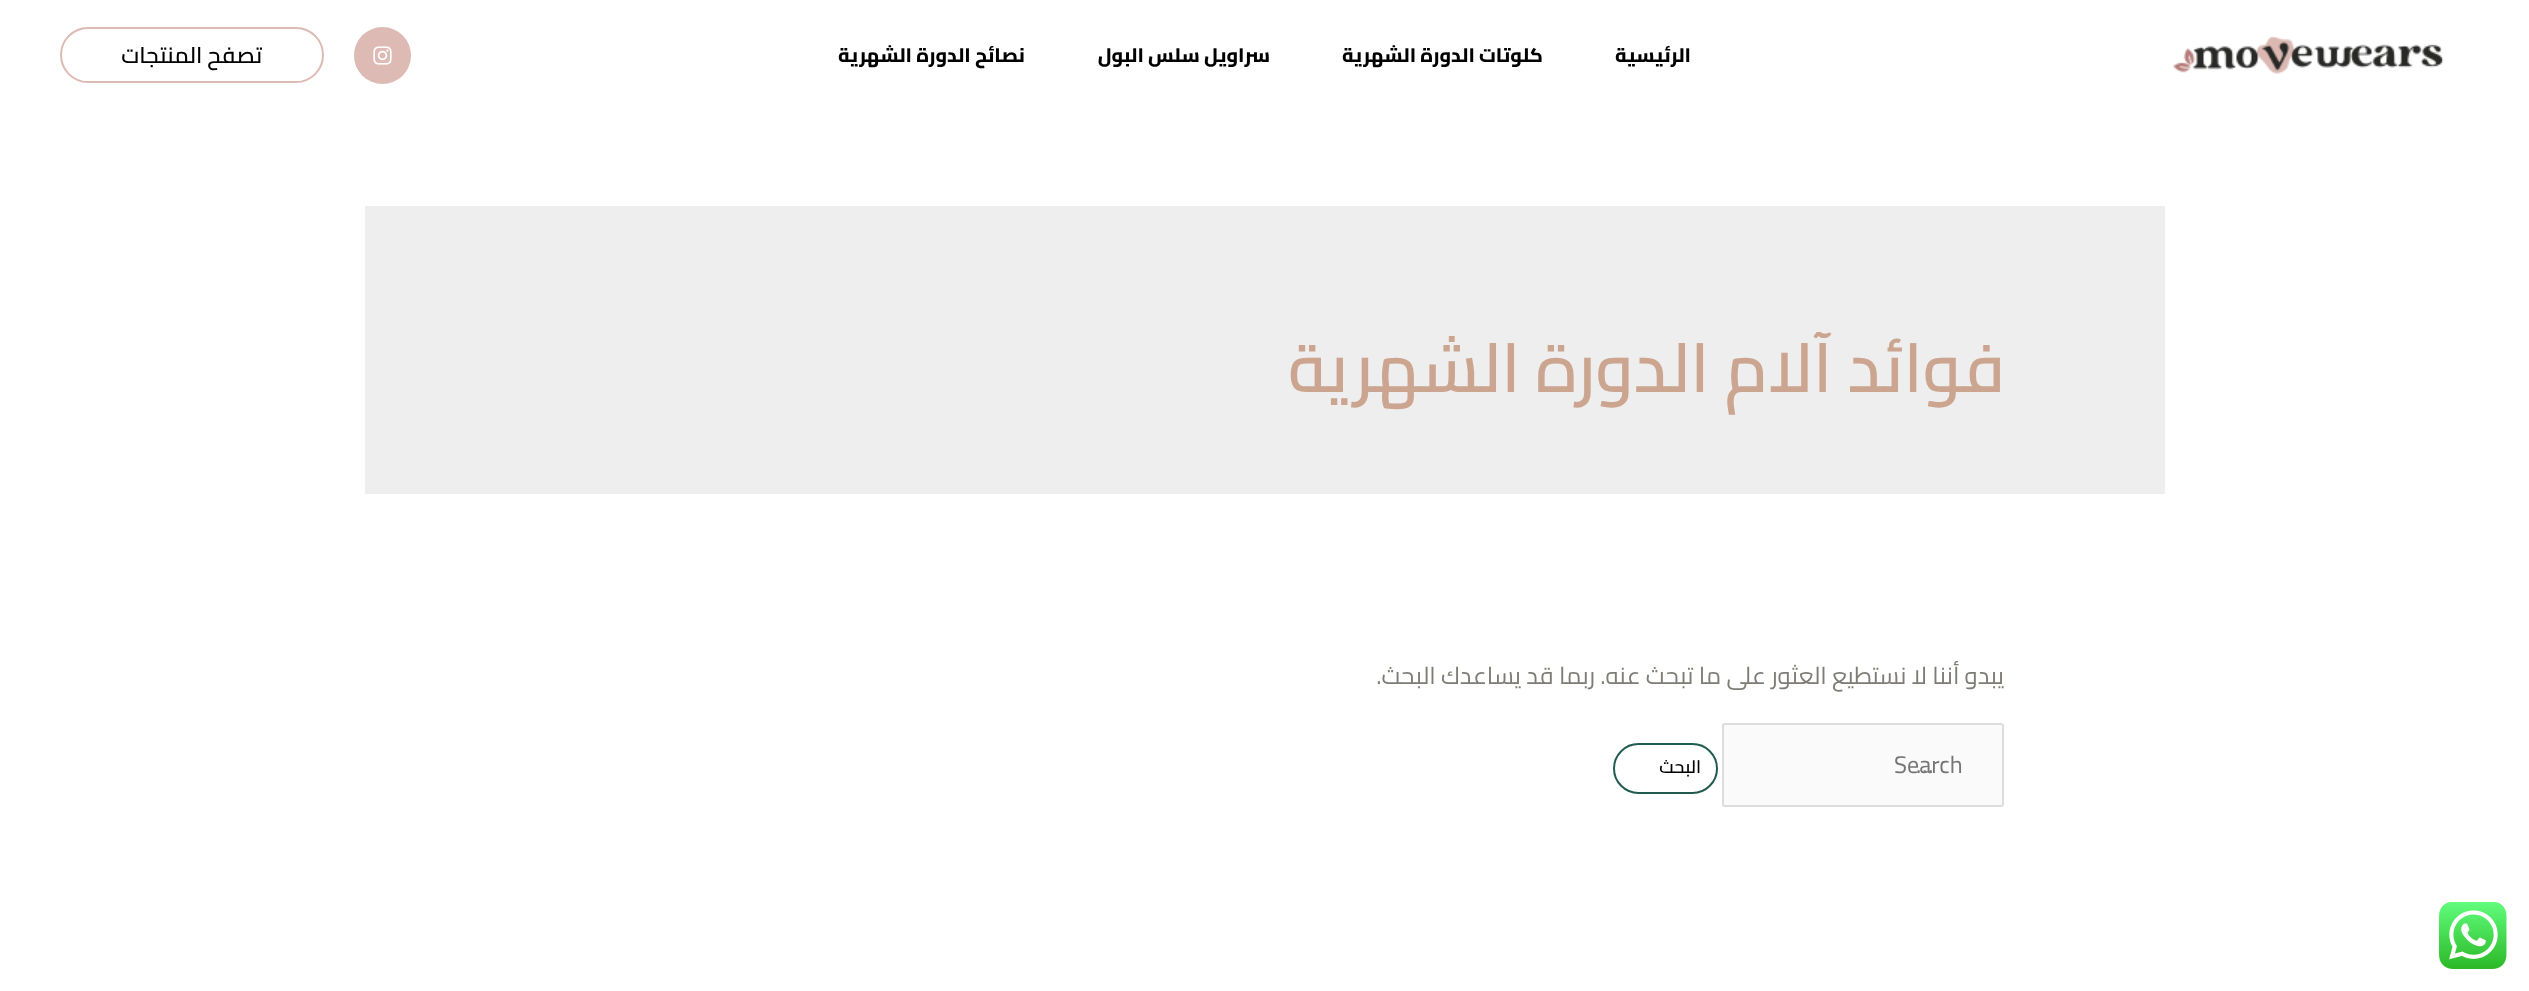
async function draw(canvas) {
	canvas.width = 2529;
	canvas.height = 991;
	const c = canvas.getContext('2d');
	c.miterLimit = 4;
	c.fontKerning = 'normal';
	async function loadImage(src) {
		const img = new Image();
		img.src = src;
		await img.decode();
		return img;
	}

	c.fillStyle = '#fff';
	c.fillRect(0, 0, 2529, 991);
	c.drawImage(await loadImage('img1.png'), 2173, 36, 271, 38);
	c.direction = 'rtl';
	c.font = '800 19.5px Cairo';
	c.fillStyle = '#000';
	for (const [text, x, y] of [
		['الرئيسية', 1691, 62],
		['كلوتات الدورة الشهرية', 1543, 62],
		['سراويل سلس البول', 1270, 62],
		['نصائح الدورة الشهرية', 1025, 62],
	]) {
		c.fillText(text, x, y);
	}
	c.fillStyle = '#ddbab4';
	c.beginPath();
	c.arc(382.5, 55.5, 28.5, 0, 2 * Math.PI);
	c.fill();
	c.drawImage(await loadImage('img2.png'), 373, 46, 19, 19);
	c.beginPath();
	c.roundRect(61, 28, 262, 54, 27);
	c.strokeStyle = '#ddbab4';
	c.lineWidth = 2;
	c.stroke();
	c.font = '600 22.5px Cairo';
	c.fillStyle = '#000';
	c.fillText('تصفح المنتجات', 262, 63);
	c.fillStyle = '#eee';
	c.fillRect(365, 206, 1800, 288);
	c.font = '600 68.5px Cairo';
	c.fillStyle = '#cba590';
	c.fillText('فوائد آلام الدورة الشهرية', 2005, 392);
	c.font = '24px Cairo';
	c.fillStyle = '#7f7c76';
	c.fillText('يبدو أننا لا نستطيع العثور على ما تبحث عنه. ربما قد يساعدك البحث.', 2004, 684);
	c.fillStyle = '#fafafa';
	c.beginPath();
	c.roundRect(1723, 724, 280, 82, 2);
	c.fill();
	c.strokeStyle = '#ddd';
	c.stroke();
	c.direction = 'ltr';
	c.fillStyle = '#757575';
	c.fillText('Search', 1894, 773);
	c.fillText('…', 1916, 773);
	c.beginPath();
	c.roundRect(1614, 744, 103, 49, 24.5);
	c.strokeStyle = '#205b4f';
	c.stroke();
	c.letterSpacing = '3px';
	c.direction = 'rtl';
	c.font = '600 18px Cairo';
	c.fillStyle = '#000';
	c.fillText('البحث', 1701, 773);
	c.drawImage(await loadImage('img3.png'), 2439, 902, 68, 67);
}

draw(document.querySelector('canvas'));
